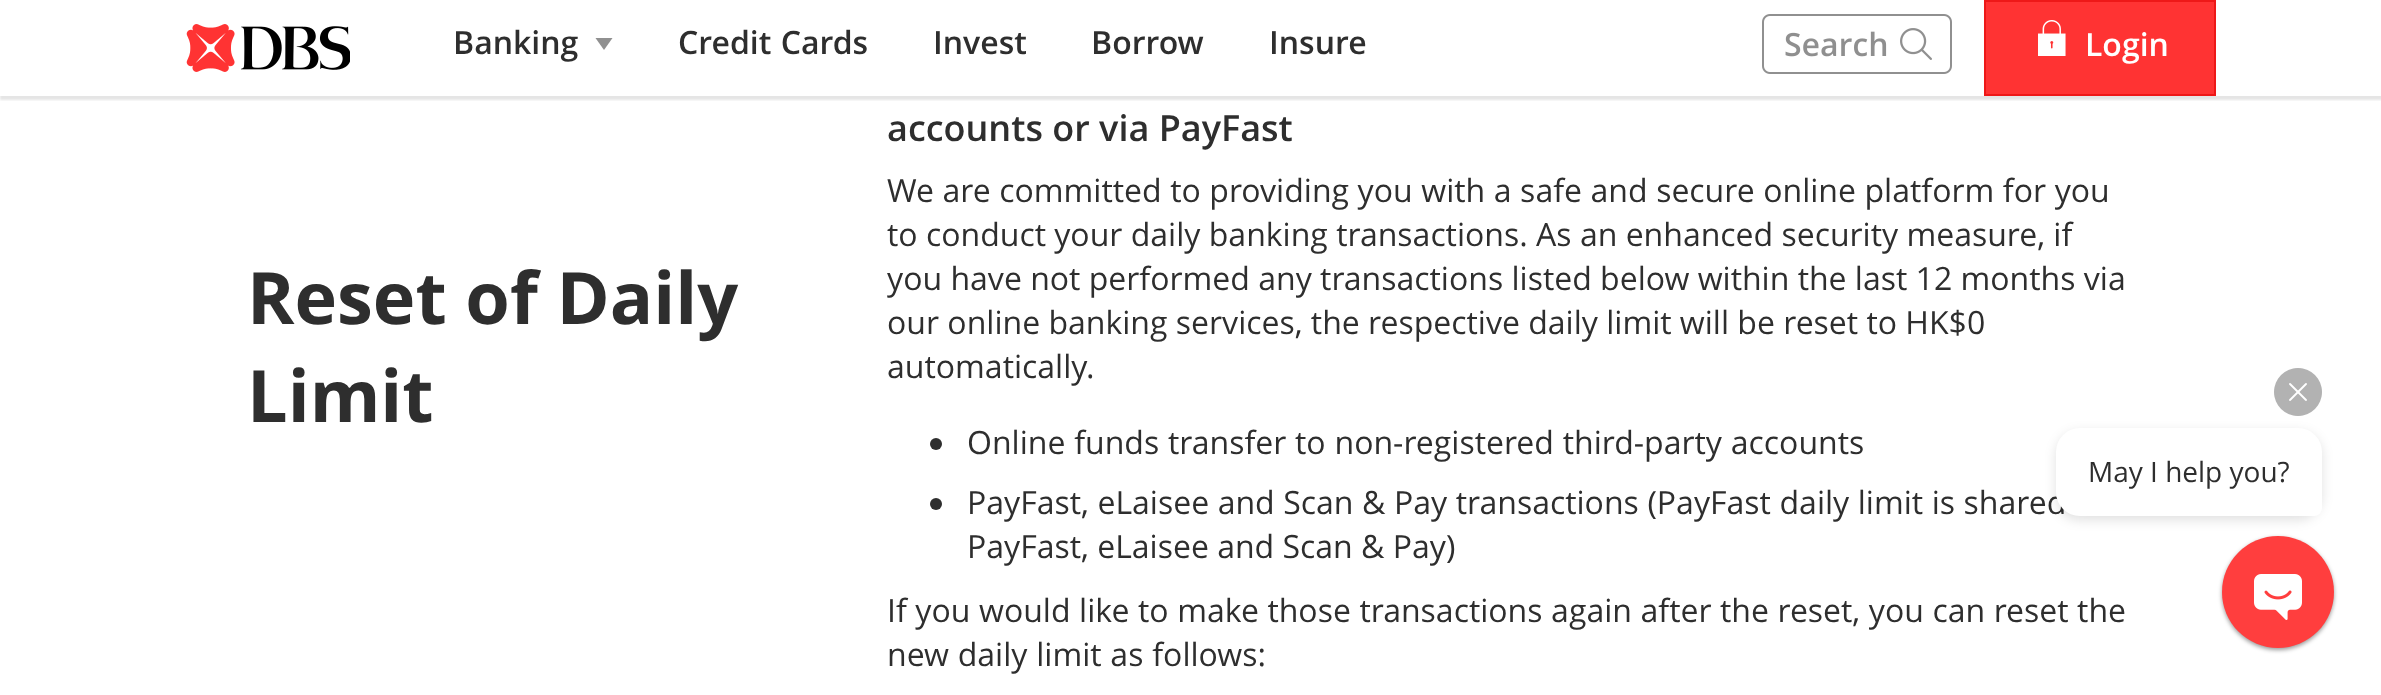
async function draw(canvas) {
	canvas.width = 2381;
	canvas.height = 695;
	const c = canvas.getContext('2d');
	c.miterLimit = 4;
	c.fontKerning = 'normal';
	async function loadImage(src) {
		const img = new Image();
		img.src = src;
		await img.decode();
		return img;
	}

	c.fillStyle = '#fff';
	c.fillRect(0, 0, 2381, 695);
	c.save();
	c.beginPath();
	c.rect(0, 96, 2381, 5);
	c.clip();
	c.fillStyle = '#0000001a';
	c.filter = 'blur(1px)';
	c.beginPath();
	c.rect(0, 4, 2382, 96);
	c.fill();
	c.filter = 'none';
	c.restore();
	c.drawImage(await loadImage('img1.png'), 186, 24, 164, 48);
	c.font = '600 32px Open Sans';
	c.fillStyle = '#2e2e2e';
	c.fillText('Banking', 453, 54);
	c.fillStyle = '#909090';
	c.beginPath();
	c.moveTo(604, 50);
	c.lineTo(612.5, 38);
	c.lineTo(595.5, 38);
	c.closePath();
	c.fill('evenodd');
	c.wordSpacing = '1px';
	c.fillStyle = '#2e2e2e';
	c.fillText('Credit Cards', 678, 54);
	c.wordSpacing = '0px';
	for (const [text, x, y] of [
		['Invest', 933, 54],
		['Borrow', 1091, 54],
		['Insure', 1269, 54],
	]) {
		c.fillText(text, x, y);
	}
	c.drawImage(await loadImage('img2.png'), 1762, 14, 190, 60);
	c.fillStyle = '#f33';
	c.beginPath();
	c.rect(1985, 1, 230, 94);
	c.fill();
	c.strokeStyle = '#ee1818';
	c.lineWidth = 2;
	c.stroke();
	c.drawImage(await loadImage('img3.png'), 2038, 20, 28, 36);
	c.fillStyle = '#fff';
	c.fillText('Login', 2085, 56);
	c.font = 'bold 72px Open Sans';
	c.fillStyle = '#2e2e2e';
	c.fillText('Reset of Daily', 247, 324);
	c.fillText('Limit', 247, 422);
	c.font = '600 36px Open Sans';
	c.fillText('accounts or via PayFast', 887, 141);
	c.wordSpacing = '0.25px';
	c.font = '32px Open Sans';
	c.fillText('We are committed to providing you with a safe and secure online platform for you', 887, 202);
	c.wordSpacing = '0px';
	for (const [text, x, y] of [
		['to conduct your daily banking transactions. As an enhanced security measure, if', 887, 246],
		['you have not performed any transactions listed below within the last 12 months via', 887, 290],
		['our online banking services, the respective daily limit will be reset to HK$0', 887, 334],
		['automatically.', 887, 378],
	]) {
		c.fillText(text, x, y);
	}
	c.beginPath();
	c.arc(936, 444, 6, 0, 2 * Math.PI);
	c.fill();
	c.wordSpacing = '0.5px';
	c.fillText('Online funds transfer to non-registered third-party accounts', 967, 454);
	c.beginPath();
	c.arc(936, 504, 6, 0, 2 * Math.PI);
	c.fill();
	c.wordSpacing = '0.25px';
	c.fillText('PayFast, eLaisee and Scan & Pay transactions (PayFast daily limit is shared', 967, 514);
	c.wordSpacing = '0px';
	c.fillText('PayFast, eLaisee and Scan & Pay)', 967, 558);
	c.wordSpacing = '0.25px';
	c.fillText('If you would like to make those transactions again after the reset, you can reset the', 887, 622);
	c.wordSpacing = '0.5px';
	c.fillText('new daily limit as follows:', 887, 666);
	c.fillStyle = '#0000001f';
	c.filter = 'blur(6px)';
	c.beginPath();
	c.roundRect(2056, 432, 266, 88, 24);
	c.fill();
	c.filter = 'none';
	c.drawImage(await loadImage('img4.png'), 2274, 368, 48, 48);
	c.fillStyle = '#fff';
	c.beginPath();
	c.roundRect(2056, 428, 266, 88, [24, 24, 8, 24]);
	c.fill();
	c.wordSpacing = '0px';
	c.font = '28px "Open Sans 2"';
	c.fillStyle = '#2e2e2e';
	c.fillText('May I help you?', 2088, 482);
	c.fillStyle = '#00000066';
	c.filter = 'blur(2px)';
	c.beginPath();
	c.roundRect(2222, 538, 112, 112, 56);
	c.fill();
	c.filter = 'none';
	c.fillStyle = '#ff3e3e';
	c.beginPath();
	c.arc(2278, 592, 56, 0, 2 * Math.PI);
	c.fill();
	c.drawImage(await loadImage('img5.png'), 2254, 574, 48, 46);
}

draw(document.querySelector('canvas'));
